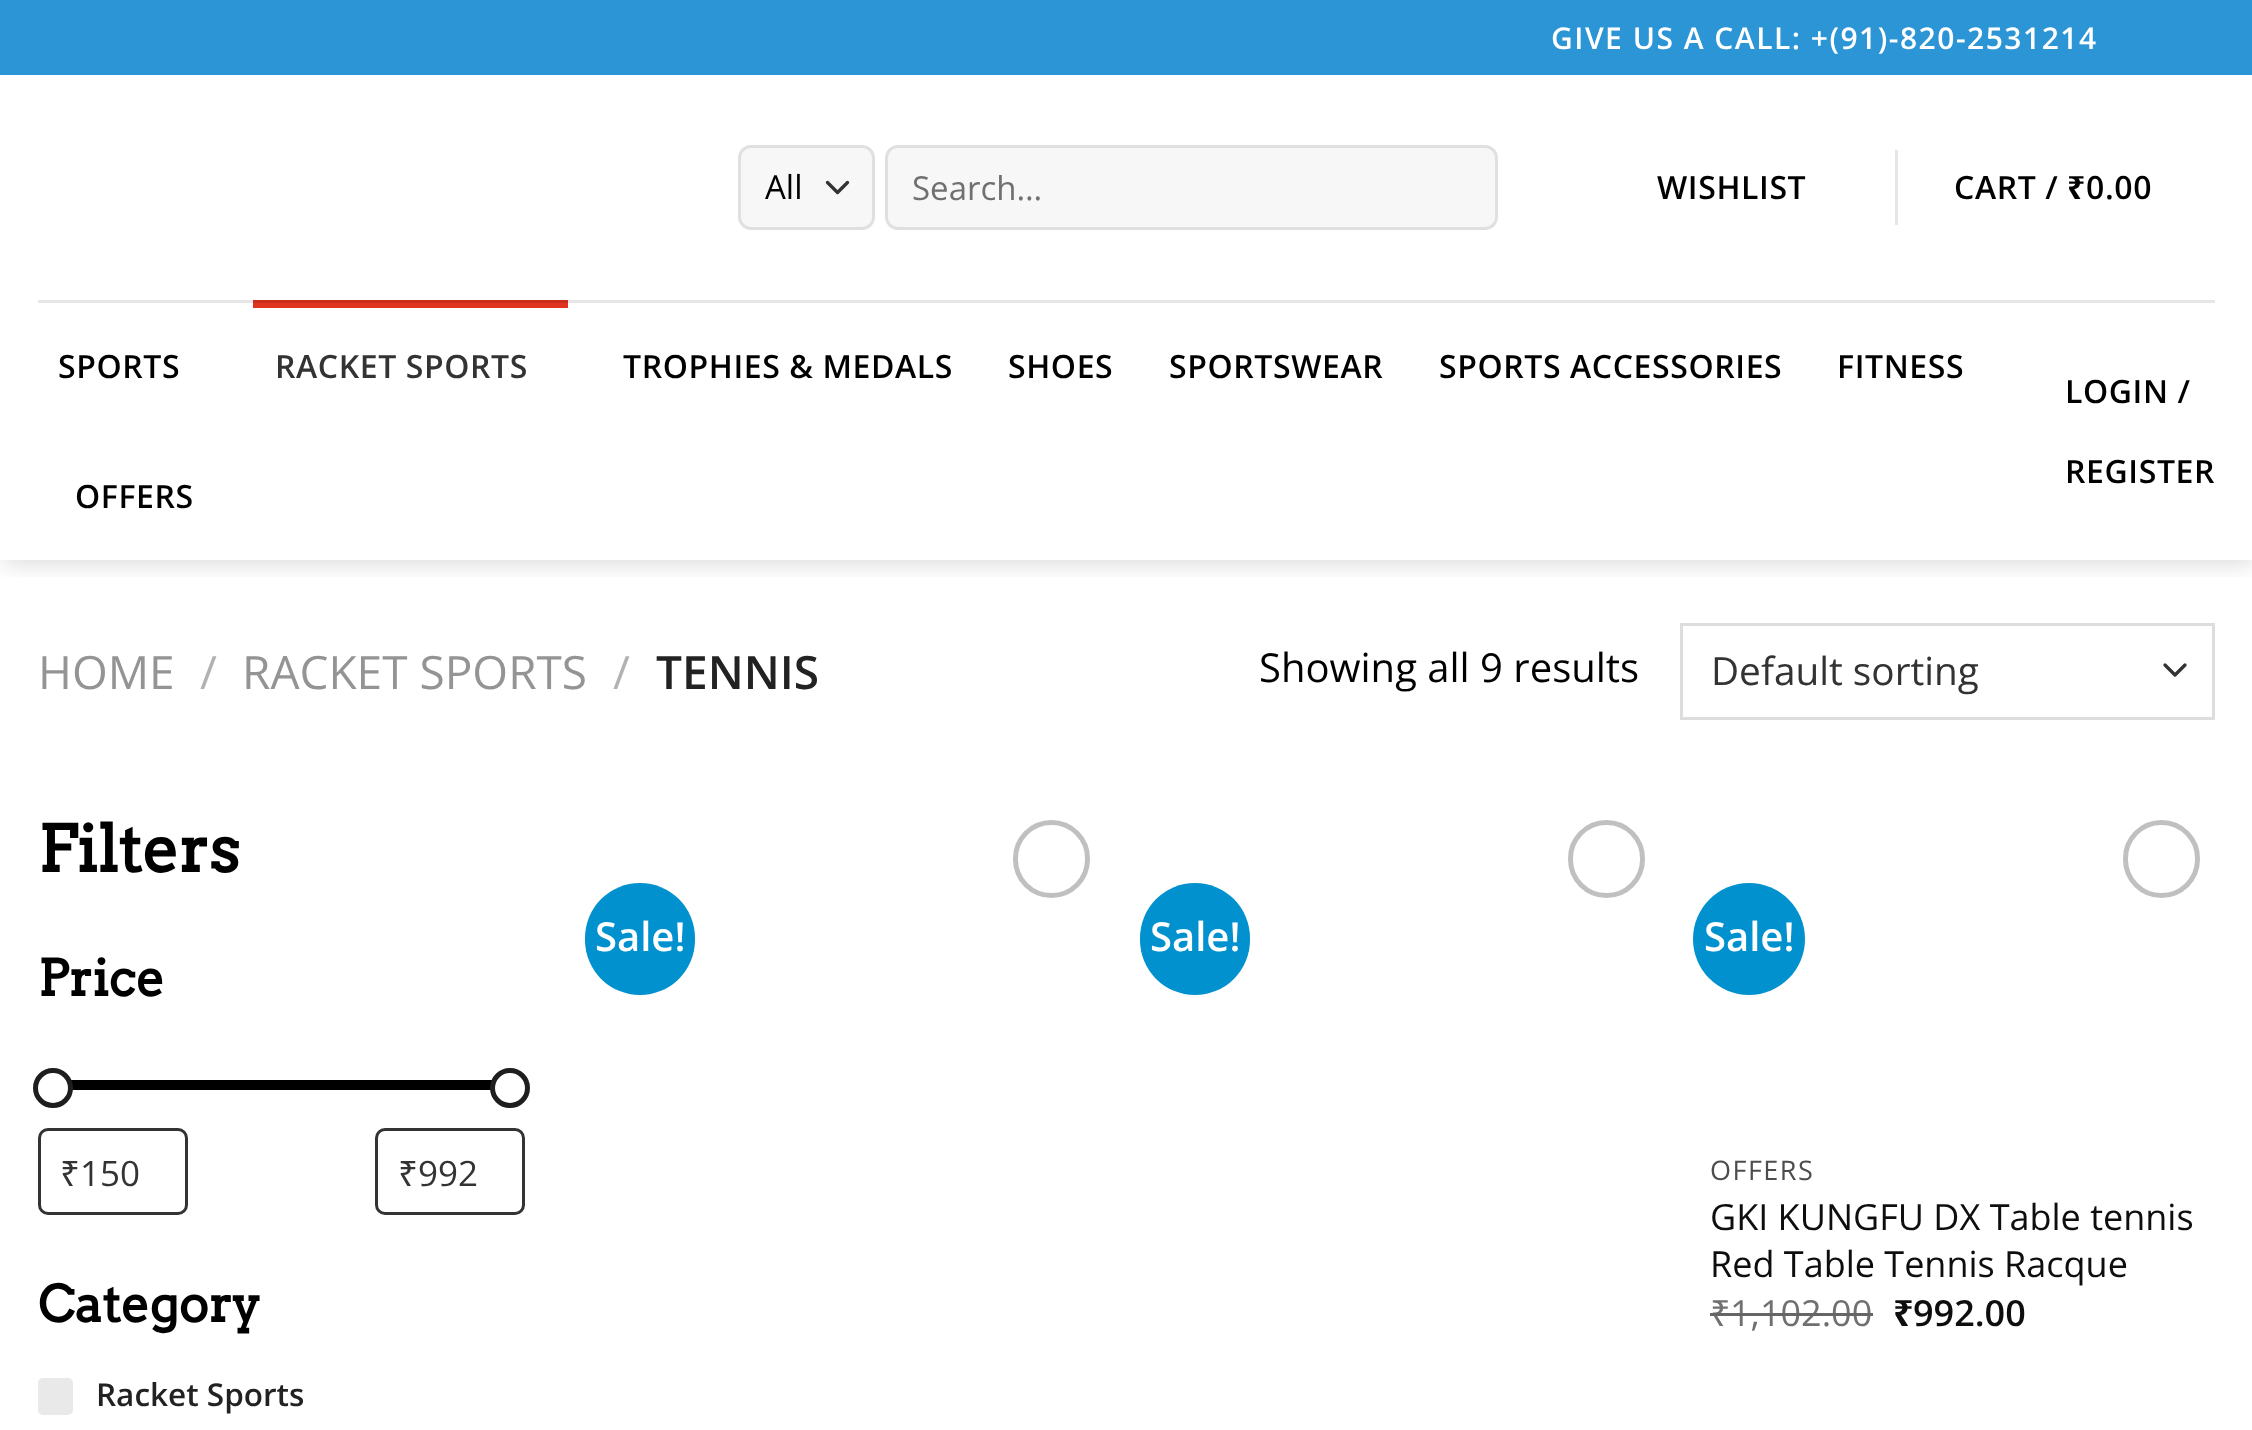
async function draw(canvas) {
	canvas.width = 2252;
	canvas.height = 1430;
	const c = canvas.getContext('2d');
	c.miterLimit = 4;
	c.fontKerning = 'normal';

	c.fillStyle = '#fff';
	c.fillRect(0, 0, 2252, 1430);
	c.fillStyle = '#e6e6e6';
	c.fillRect(38, 300, 2177, 3);
	c.save();
	c.beginPath();
	c.rect(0, 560, 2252, 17);
	c.clip();
	c.fillStyle = '#00000026';
	c.filter = 'blur(12.5px)';
	c.beginPath();
	c.rect(3, 3, 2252, 560);
	c.fill();
	c.filter = 'none';
	c.restore();
	c.fillStyle = '#2b95d5';
	c.fillRect(0, 0, 2252, 75);
	c.letterSpacing = '1.5px';
	c.font = '600 30px Open Sans';
	c.fillStyle = '#fff';
	c.fillText('GIVE US A CALL: +(91)-820-2531214', 1551, 49);
	c.fillStyle = '#f7f7f7';
	c.beginPath();
	c.roundRect(738, 145, 137, 85, 13);
	c.fill();
	c.beginPath();
	c.moveTo(827.5, 182.5);
	c.lineTo(837.5, 192.5);
	c.lineTo(847.5, 182.5);
	c.strokeStyle = '#333';
	c.lineWidth = 3.3;
	c.lineCap = 'round';
	c.lineJoin = 'round';
	c.stroke();
	c.beginPath();
	c.roundRect(739.5, 146.5, 134, 82, 11.5);
	c.strokeStyle = '#00000017';
	c.lineWidth = 3;
	c.lineJoin = 'miter';
	c.stroke();
	c.letterSpacing = '0px';
	c.font = '33px Open Sans';
	c.fillStyle = '#000';
	c.fillText('All', 765, 199);
	c.fillStyle = '#f7f7f7';
	c.beginPath();
	c.roundRect(885, 145, 613, 85, 13);
	c.fill();
	c.beginPath();
	c.roundRect(886.5, 146.5, 610, 82, 11.5);
	c.stroke();
	c.fillStyle = '#707070';
	c.fillText('Search…', 912, 200);
	c.letterSpacing = '0.6px';
	c.font = '600 32px Open Sans';
	c.fillStyle = '#000';
	c.fillText('WISHLIST', 1657, 199);
	c.fillStyle = '#e6e6e6';
	c.fillRect(1895, 150, 3, 75);
	c.fillStyle = '#000';
	c.fillText('CART /', 1954, 199);
	c.font = 'bold 32px Noto Sans';
	c.fillText('₹', 2067, 199);
	c.font = '600 32px Open Sans';
	c.fillText('0.00', 2086, 199);
	c.fillText('SPORTS', 58, 378);
	c.fillStyle = '#e03421';
	c.fillRect(253, 303, 315, 5);
	c.fillStyle = '#ca2f1e';
	c.fillRect(253, 300, 315, 3);
	c.fillStyle = '#333';
	c.fillText('RACKET SPORTS', 275, 378);
	c.fillStyle = '#000';
	for (const [text, x, y] of [
		['TROPHIES & MEDALS', 623, 378],
		['SHOES', 1008, 378],
		['SPORTSWEAR', 1169, 378],
		['SPORTS ACCESSORIES', 1439, 378],
		['FITNESS', 1837, 378],
		['OFFERS', 75, 508],
		['LOGIN /', 2065, 403],
		['REGISTER', 2065, 483],
	]) {
		c.fillText(text, x, y);
	}
	c.letterSpacing = '0px';
	c.font = '46px Open Sans';
	c.fillStyle = '#949494';
	c.fillText('HOME', 38, 689);
	c.fillStyle = '#b2b2b2';
	c.fillText('/', 200, 689);
	c.fillStyle = '#949494';
	c.fillText('RACKET SPORTS', 242, 689);
	c.fillStyle = '#b2b2b2';
	c.fillText('/', 613, 689);
	c.font = '600 46px Open Sans';
	c.fillStyle = '#222';
	c.fillText('TENNIS', 656, 689);
	c.font = '40px Open Sans';
	c.fillStyle = '#000';
	c.fillText('Showing all 9 results', 1259, 682);
	c.beginPath();
	c.moveTo(2165, 665);
	c.lineTo(2175, 675);
	c.lineTo(2185, 665);
	c.strokeStyle = '#333';
	c.lineWidth = 3.3;
	c.lineJoin = 'round';
	c.stroke();
	c.strokeStyle = '#ddd';
	c.lineWidth = 3;
	c.lineJoin = 'miter';
	c.strokeRect(1681.5, 624.5, 532, 94);
	c.font = '38.75px Open Sans';
	c.fillStyle = '#333';
	c.fillText('Default sorting', 1711, 685);
	c.font = 'bold 64px Arvo';
	c.fillStyle = '#000';
	c.fillText('Filters', 38, 872);
	c.font = 'bold 50px Arvo';
	c.fillText('Price', 38, 996);
	c.fillRect(71, 1080, 421, 10);
	c.fillStyle = '#fff';
	c.beginPath();
	c.arc(53, 1088, 17.5, 0, 2 * Math.PI);
	c.fill();
	c.strokeStyle = '#1e1e1e';
	c.lineWidth = 5;
	c.stroke();
	c.beginPath();
	c.arc(510, 1088, 17.5, 0, 2 * Math.PI);
	c.fill();
	c.stroke();
	c.beginPath();
	c.roundRect(39.5, 1129.5, 147, 84, 8.5);
	c.strokeStyle = '#333';
	c.lineWidth = 3;
	c.stroke();
	c.font = '35px Noto Sans';
	c.fillStyle = '#333';
	c.fillText('₹', 60, 1186);
	c.font = '35px Open Sans';
	c.fillText('150', 80, 1186);
	c.beginPath();
	c.roundRect(376.5, 1129.5, 147, 84, 8.5);
	c.stroke();
	c.font = '35px Noto Sans';
	c.fillText('₹', 398, 1186);
	c.font = '35px Open Sans';
	c.fillText('992', 418, 1186);
	c.font = 'bold 50px Arvo';
	c.fillStyle = '#000';
	c.fillText('Category', 38, 1322);
	c.fillStyle = '#e9e9e9';
	c.beginPath();
	c.roundRect(38, 1378, 35, 37, 5);
	c.fill();
	c.font = '600 31.5px Open Sans';
	c.fillStyle = '#222';
	c.fillText('Racket Sports', 96, 1406);
	c.beginPath();
	c.roundRect(1015.5, 822.5, 72, 73, 36);
	c.strokeStyle = '#c0c0c0';
	c.lineWidth = 5;
	c.stroke();
	c.fillStyle = '#0091ce';
	c.beginPath();
	c.roundRect(585, 883, 110, 112, 55);
	c.fill();
	c.font = '600 40px Open Sans';
	c.fillStyle = '#fff';
	c.fillText('Sale!', 595, 951);
	c.beginPath();
	c.roundRect(1570.5, 822.5, 72, 73, 36);
	c.stroke();
	c.fillStyle = '#0091ce';
	c.beginPath();
	c.roundRect(1140, 883, 110, 112, 55);
	c.fill();
	c.fillStyle = '#fff';
	c.fillText('Sale!', 1150, 951);
	c.fillStyle = '#0091ce';
	c.beginPath();
	c.arc(1749, 939, 56, 0, 2 * Math.PI);
	c.fill();
	c.fillStyle = '#fff';
	c.fillText('Sale!', 1704, 951);
	c.beginPath();
	c.roundRect(2125.5, 822.5, 72, 73, 36);
	c.stroke();
	c.letterSpacing = '1.5px';
	c.font = '27px Open Sans';
	c.fillStyle = '#4d4d4d';
	c.fillText('OFFERS', 1710, 1180);
	c.letterSpacing = '0px';
	c.font = '36px Open Sans';
	c.fillStyle = '#0e0e0e';
	c.fillText('GKI KUNGFU DX Table tennis', 1710, 1230);
	c.fillText('Red Table Tennis Racque', 1710, 1277);
	c.font = '36px Noto Sans';
	c.fillStyle = '#707070';
	c.fillText('₹', 1710, 1326);
	c.fillStyle = '#666';
	c.fillRect(1710, 1313, 20, 3);
	c.font = '36px Open Sans';
	c.fillStyle = '#707070';
	c.fillText('1,102.00', 1730, 1326);
	c.fillStyle = '#666';
	c.fillRect(1730, 1313, 143, 3);
	c.font = 'bold 36px Noto Sans';
	c.fillStyle = '#0e0e0e';
	c.fillText('₹', 1893, 1326);
	c.font = '600 36px Open Sans';
	c.fillText('992.00', 1913, 1326);
}

draw(document.querySelector('canvas'));
